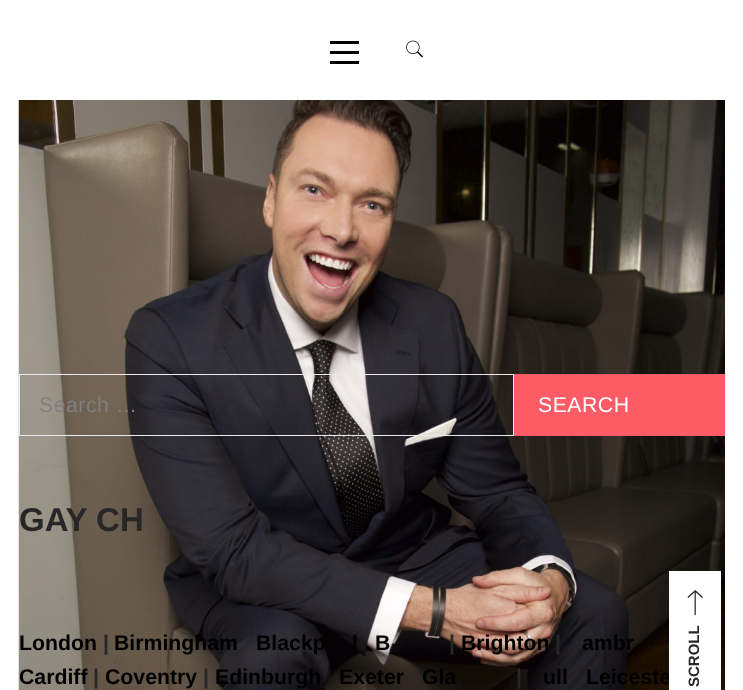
async function draw(canvas) {
	canvas.width = 743;
	canvas.height = 690;
	const c = canvas.getContext('2d');
	c.miterLimit = 4;
	c.fontKerning = 'normal';
	async function loadImage(src) {
		const img = new Image();
		img.src = src;
		await img.decode();
		return img;
	}

	c.fillStyle = '#fff';
	c.fillRect(0, 0, 743, 690);
	for (const [x, y, w, h, color] of [
		[330, 51, 29, 3, '#000'],
		[330, 41, 29, 3, '#000'],
		[330, 61, 29, 3, '#000'],
	]) {
		c.fillStyle = color;
		c.fillRect(x, y, w, h);
	}
	c.drawImage(await loadImage('img1.png'), 406, 40, 17, 18);
	c.drawImage(await loadImage('img2.png'), 18, 100, 707, 590);
	c.strokeStyle = '#eaeaea';
	c.strokeRect(19.5, 374.5, 494, 61);
	c.letterSpacing = '0.5px';
	c.font = '21.25px Liberation Sans';
	c.fillStyle = '#807f7d';
	c.fillText('Search …', 39, 412);
	c.fillStyle = '#fd5b66';
	c.fillRect(514, 374, 211, 62);
	c.fillStyle = '#fff';
	c.fillText('SEARCH', 538, 412);
	c.letterSpacing = '0px';
	c.font = 'bold 33px Liberation Sans';
	c.fillStyle = '#272727';
	c.fillText('GAY CH', 19, 531);
	c.font = 'bold 21.25px Liberation Sans';
	c.fillStyle = '#000';
	c.fillText('London', 19, 650);
	c.fillStyle = '#272727';
	c.fillText('|', 103, 650);
	c.fillStyle = '#000';
	for (const [text, x, y] of [
		['Birmingham', 114, 650],
		['Blackp', 256, 650],
		['l', 352, 650],
		['B', 375, 650],
	]) {
		c.fillText(text, x, y);
	}
	c.fillStyle = '#272727';
	c.fillText('|', 449, 650);
	c.fillStyle = '#000';
	c.fillText('Brighton', 461, 650);
	c.fillStyle = '#272727';
	c.fillText('|', 555, 650);
	c.fillStyle = '#000';
	c.fillText('ambr', 582, 650);
	c.fillText('Cardiff', 19, 684);
	c.fillStyle = '#272727';
	c.fillText('|', 93, 684);
	c.fillStyle = '#000';
	c.fillText('Coventry', 105, 684);
	c.fillStyle = '#272727';
	c.fillText('|', 203, 684);
	c.fillStyle = '#000';
	for (const [text, x, y] of [
		['Edinburgh', 215, 684],
		['Exeter', 339, 684],
		['Gla', 422, 684],
	]) {
		c.fillText(text, x, y);
	}
	c.fillStyle = '#272727';
	c.fillText('|', 516, 684);
	c.fillStyle = '#000';
	c.fillText('ull', 543, 684);
	c.fillText('Leiceste', 586, 684);
	c.fillStyle = '#fff';
	c.fillRect(669, 571, 52, 119);
	c.drawImage(await loadImage('img3.png'), 687, 590, 16, 26);
	c.font = 'bold 15px Liberation Sans';
	c.fillStyle = '#272727';
	c.save();
	c.translate(699, 687);
	c.rotate(-90 * Math.PI / 180);
	c.fillText('SCROLL', 0, 0);
	c.restore();
}

draw(document.querySelector('canvas'));
